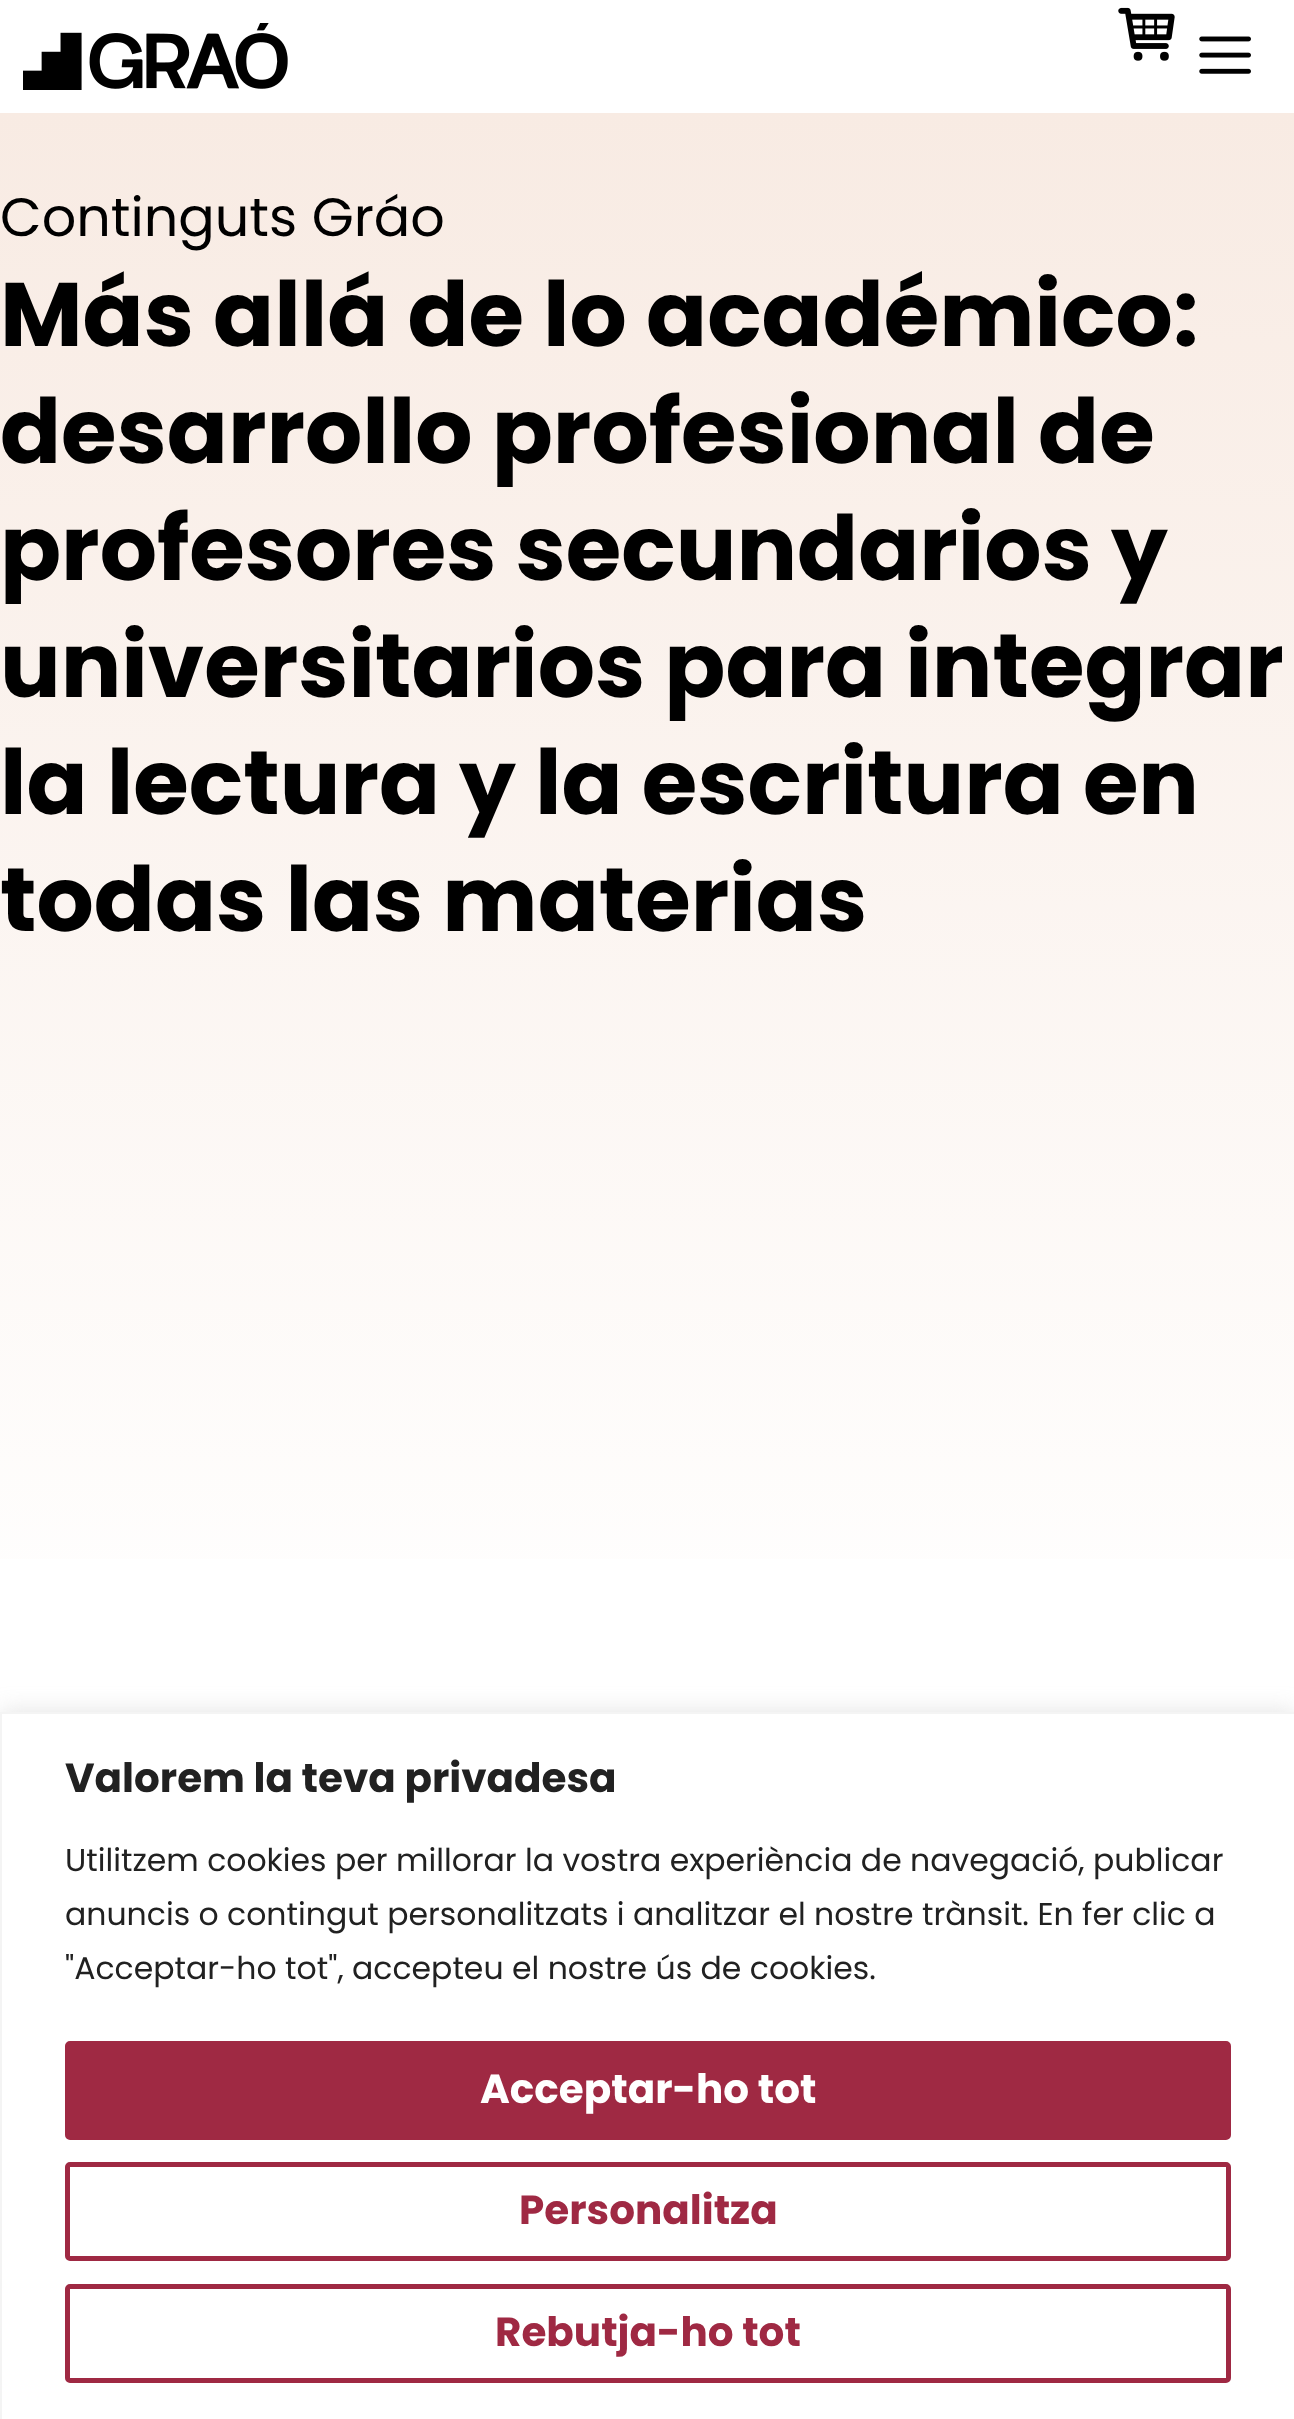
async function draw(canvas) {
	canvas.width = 1294;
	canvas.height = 2419;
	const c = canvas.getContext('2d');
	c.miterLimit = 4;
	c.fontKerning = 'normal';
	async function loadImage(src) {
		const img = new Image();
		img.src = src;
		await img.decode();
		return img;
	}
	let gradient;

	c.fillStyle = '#fff';
	c.fillRect(0, 0, 1294, 2419);
	c.drawImage(await loadImage('img1.png'), 23, 23, 265, 67);
	c.drawImage(await loadImage('img2.png'), 1118, 7, 57, 54);
	c.drawImage(await loadImage('img3.png'), 1199, 36, 52, 38);
	gradient = c.createLinearGradient(648, 112, 648, 1701);
	gradient.addColorStop(0, '#f8ebe3');
	gradient.addColorStop(1, '#fff');
	c.fillStyle = gradient;
	c.fillRect(0, 113, 1294, 1446);
	c.font = '54px Poppins';
	c.fillStyle = '#000';
	c.fillText('Continguts Gráo', 0, 236);
	c.font = 'bold 90px Poppins';
	for (const [text, x, y] of [
		['Más allá de lo académico:', 0, 346],
		['desarrollo profesional de', 0, 463],
		['profesores secundarios y', 0, 580],
		['universitarios para integrar', 0, 697],
		['la lectura y la escritura en', 0, 814],
		['todas las materias', 0, 931],
	]) {
		c.fillText(text, x, y);
	}
	c.fillStyle = '#acabab4d';
	c.filter = 'blur(11px)';
	c.beginPath();
	c.rect(0, 1710, 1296, 709);
	c.fill();
	c.filter = 'none';
	c.fillStyle = '#fff';
	c.beginPath();
	c.rect(1, 1713, 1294, 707);
	c.fill();
	c.strokeStyle = '#f4f4f4';
	c.lineWidth = 2;
	c.stroke();
	c.font = 'bold 40.5px Poppins';
	c.fillStyle = '#212121';
	c.fillText('Valorem la teva privadesa', 65, 1792);
	c.font = '31.5px Poppins';
	for (const [text, x, y] of [
		['Utilitzem cookies per millorar la vostra experiència de navegació, publicar', 65, 1871],
		['anuncis o contingut personalitzats i analitzar el nostre trànsit. En fer clic a', 65, 1925],
		['"Acceptar-ho tot", accepteu el nostre ús de cookies.', 65, 1979],
	]) {
		c.fillText(text, x, y);
	}
	c.fillStyle = '#9f2943';
	c.beginPath();
	c.roundRect(67.5, 2043.5, 1161, 94, 2.5);
	c.fill();
	c.strokeStyle = '#9f2943';
	c.lineWidth = 5;
	c.stroke();
	c.font = 'bold 40.5px Poppins';
	c.fillStyle = '#fff';
	c.fillText('Acceptar-ho tot', 480, 2103);
	c.beginPath();
	c.roundRect(67.5, 2164.5, 1161, 94, 2.5);
	c.stroke();
	c.fillStyle = '#9f2943';
	c.fillText('Personalitza', 519, 2224);
	c.beginPath();
	c.roundRect(67.5, 2286.5, 1161, 94, 2.5);
	c.stroke();
	c.fillText('Rebutja-ho tot', 495, 2346);
}

draw(document.querySelector('canvas'));
